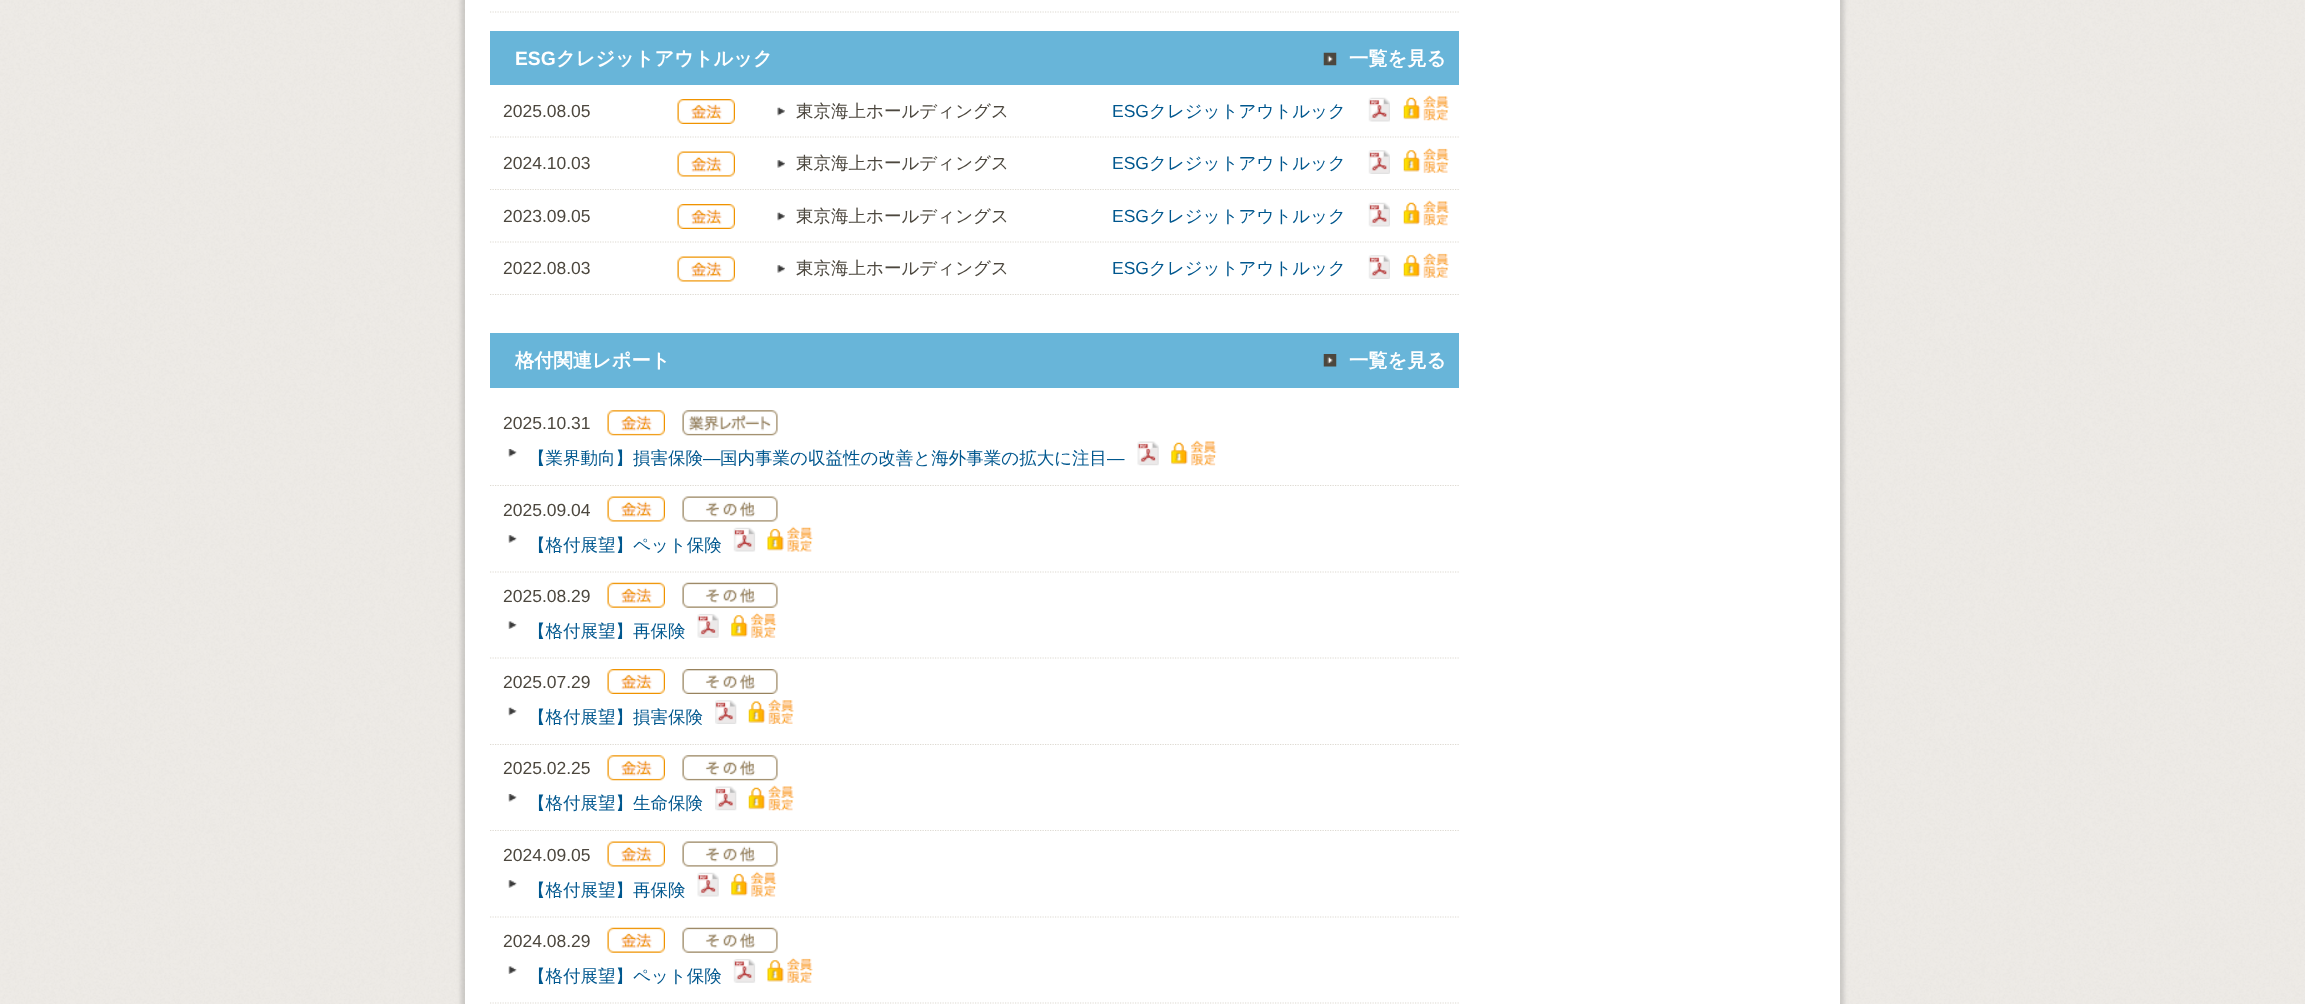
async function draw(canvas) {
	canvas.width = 2305;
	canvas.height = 1004;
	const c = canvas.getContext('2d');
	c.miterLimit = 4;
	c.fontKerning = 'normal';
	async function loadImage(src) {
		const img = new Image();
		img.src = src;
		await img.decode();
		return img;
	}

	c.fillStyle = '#fff';
	c.fillRect(0, 0, 2305, 1004);
	c.drawImage(await loadImage('img1.png'), 0, 0, 2305, 1004);
	c.fillStyle = '#47474733';
	c.filter = 'blur(2px)';
	c.beginPath();
	c.rect(461, -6, 1383, 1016);
	c.fill();
	c.filter = 'none';
	c.fillStyle = '#fff';
	c.fillRect(465, 0, 1375, 1004);
	c.beginPath();
	c.moveTo(490, 12);
	c.lineTo(677.5, 12);
	c.strokeStyle = '#dedad2';
	c.lineWidth = 1.2;
	c.setLineDash([1.25, 1.25]);
	c.stroke();
	c.beginPath();
	c.moveTo(677.5, 12);
	c.lineTo(1459, 12);
	c.stroke();
	c.fillStyle = '#68b5d9';
	c.fillRect(490, 31, 969, 54);
	c.font = 'bold 19.25px Liberation Sans';
	c.fillStyle = '#fff';
	c.fillText('ESG', 515, 65);
	c.font = 'bold 19.25px WenQuanYi Zen Hei';
	c.fillText('クレジットアウトルック', 556, 65);
	c.drawImage(await loadImage('img2.png'), 1323, 52, 14, 14);
	c.fillText('一覧を見る', 1349, 65);
	c.beginPath();
	c.moveTo(490, 137);
	c.lineTo(677.5, 137);
	c.stroke();
	c.font = '17.5px Liberation Sans';
	c.fillStyle = '#4c473e';
	c.fillText('2025.08.05', 503, 117);
	c.drawImage(await loadImage('img3.png'), 677, 99, 58, 25);
	c.beginPath();
	c.moveTo(677.5, 137);
	c.lineTo(1459, 137);
	c.stroke();
	c.drawImage(await loadImage('img4.png'), 777, 107, 8, 9);
	c.font = '500 17.5px WenQuanYi Zen Hei';
	c.fillText('東京海上ホールディングス', 796, 117);
	c.font = '17.5px Liberation Sans';
	c.fillStyle = '#00578e';
	c.fillText('ESG', 1112, 117);
	c.font = '500 17.5px WenQuanYi Zen Hei';
	c.fillText('クレジットアウトルック', 1149, 117);
	c.drawImage(await loadImage('img5.png'), 1368, 97, 22, 25);
	c.drawImage(await loadImage('img6.png'), 1403, 95, 46, 26);
	c.beginPath();
	c.moveTo(490, 189.5);
	c.lineTo(677.5, 189.5);
	c.stroke();
	c.font = '17.5px Liberation Sans';
	c.fillStyle = '#4c473e';
	c.fillText('2024.10.03', 503, 169);
	c.drawImage(await loadImage('img7.png'), 677, 151, 58, 26);
	c.beginPath();
	c.moveTo(677.5, 189.5);
	c.lineTo(1459, 189.5);
	c.stroke();
	c.drawImage(await loadImage('img8.png'), 777, 160, 8, 8);
	c.font = '500 17.5px WenQuanYi Zen Hei';
	c.fillText('東京海上ホールディングス', 796, 169);
	c.font = '17.5px Liberation Sans';
	c.fillStyle = '#00578e';
	c.fillText('ESG', 1112, 169);
	c.font = '500 17.5px WenQuanYi Zen Hei';
	c.fillText('クレジットアウトルック', 1149, 169);
	c.drawImage(await loadImage('img9.png'), 1368, 150, 22, 24);
	c.drawImage(await loadImage('img10.png'), 1403, 147, 46, 26);
	c.beginPath();
	c.moveTo(490, 242);
	c.lineTo(677.5, 242);
	c.stroke();
	c.font = '17.5px Liberation Sans';
	c.fillStyle = '#4c473e';
	c.fillText('2023.09.05', 503, 222);
	c.drawImage(await loadImage('img3.png'), 677, 204, 58, 25);
	c.beginPath();
	c.moveTo(677.5, 242);
	c.lineTo(1459, 242);
	c.stroke();
	c.drawImage(await loadImage('img4.png'), 777, 212, 8, 9);
	c.font = '500 17.5px WenQuanYi Zen Hei';
	c.fillText('東京海上ホールディングス', 796, 222);
	c.font = '17.5px Liberation Sans';
	c.fillStyle = '#00578e';
	c.fillText('ESG', 1112, 222);
	c.font = '500 17.5px WenQuanYi Zen Hei';
	c.fillText('クレジットアウトルック', 1149, 222);
	c.drawImage(await loadImage('img5.png'), 1368, 202, 22, 25);
	c.drawImage(await loadImage('img6.png'), 1403, 200, 46, 26);
	c.beginPath();
	c.moveTo(490, 294.5);
	c.lineTo(677.5, 294.5);
	c.stroke();
	c.font = '17.5px Liberation Sans';
	c.fillStyle = '#4c473e';
	c.fillText('2022.08.03', 503, 274);
	c.drawImage(await loadImage('img11.png'), 677, 256, 58, 26);
	c.beginPath();
	c.moveTo(677.5, 294.5);
	c.lineTo(1459, 294.5);
	c.stroke();
	c.drawImage(await loadImage('img8.png'), 777, 265, 8, 8);
	c.font = '500 17.5px WenQuanYi Zen Hei';
	c.fillText('東京海上ホールディングス', 796, 274);
	c.font = '17.5px Liberation Sans';
	c.fillStyle = '#00578e';
	c.fillText('ESG', 1112, 274);
	c.font = '500 17.5px WenQuanYi Zen Hei';
	c.fillText('クレジットアウトルック', 1149, 274);
	c.drawImage(await loadImage('img12.png'), 1368, 255, 22, 24);
	c.drawImage(await loadImage('img13.png'), 1403, 252, 46, 26);
	c.fillStyle = '#68b5d9';
	c.fillRect(490, 333, 969, 55);
	c.font = 'bold 19.25px WenQuanYi Zen Hei';
	c.fillStyle = '#fff';
	c.fillText('格付関連レポート', 515, 367);
	c.drawImage(await loadImage('img14.png'), 1323, 354, 14, 13);
	c.fillText('一覧を見る', 1349, 367);
	c.font = '17.5px Liberation Sans';
	c.fillStyle = '#4c473e';
	c.fillText('2025.10.31', 503, 429);
	c.drawImage(await loadImage('img15.png'), 607, 410, 58, 26);
	c.drawImage(await loadImage('img16.png'), 682, 410, 96, 26);
	c.beginPath();
	c.moveTo(490, 485.5);
	c.lineTo(1459, 485.5);
	c.stroke();
	c.drawImage(await loadImage('img17.png'), 508, 449, 9, 8);
	c.font = '500 17.5px WenQuanYi Zen Hei';
	c.fillStyle = '#00578e';
	c.fillText('【業界動向】損害保険', 528, 464);
	c.font = '17.5px Liberation Sans';
	c.fillText('—', 703, 464);
	c.font = '500 17.5px WenQuanYi Zen Hei';
	c.fillText('国内事業の収益性の改善と海外事業の拡大に注目', 720, 464);
	c.font = '17.5px Liberation Sans';
	c.fillText('—', 1107, 464);
	c.drawImage(await loadImage('img18.png'), 1137, 440, 80, 26);
	c.fillStyle = '#4c473e';
	c.fillText('2025.09.04', 503, 516);
	c.drawImage(await loadImage('img7.png'), 607, 496, 58, 26);
	c.drawImage(await loadImage('img19.png'), 682, 496, 96, 26);
	c.beginPath();
	c.moveTo(490, 572);
	c.lineTo(1459, 572);
	c.stroke();
	c.drawImage(await loadImage('img20.png'), 508, 535, 9, 8);
	c.font = '500 17.5px WenQuanYi Zen Hei';
	c.fillStyle = '#00578e';
	c.fillText('【格付展望】ペット保険', 528, 551);
	c.drawImage(await loadImage('img21.png'), 733, 526, 80, 26);
	c.font = '17.5px Liberation Sans';
	c.fillStyle = '#4c473e';
	c.fillText('2025.08.29', 503, 602);
	c.drawImage(await loadImage('img22.png'), 607, 582, 58, 26);
	c.drawImage(await loadImage('img23.png'), 682, 582, 96, 26);
	c.beginPath();
	c.moveTo(490, 658);
	c.lineTo(1459, 658);
	c.stroke();
	c.drawImage(await loadImage('img24.png'), 508, 621, 9, 8);
	c.font = '500 17.5px WenQuanYi Zen Hei';
	c.fillStyle = '#00578e';
	c.fillText('【格付展望】再保険', 528, 637);
	c.drawImage(await loadImage('img25.png'), 697, 612, 80, 26);
	c.font = '17.5px Liberation Sans';
	c.fillStyle = '#4c473e';
	c.fillText('2025.07.29', 503, 688);
	c.drawImage(await loadImage('img3.png'), 607, 669, 58, 25);
	c.drawImage(await loadImage('img26.png'), 682, 669, 96, 25);
	c.beginPath();
	c.moveTo(490, 744.5);
	c.lineTo(1459, 744.5);
	c.stroke();
	c.drawImage(await loadImage('img27.png'), 508, 707, 9, 9);
	c.font = '500 17.5px WenQuanYi Zen Hei';
	c.fillStyle = '#00578e';
	c.fillText('【格付展望】損害保険', 528, 723);
	c.drawImage(await loadImage('img28.png'), 715, 699, 79, 25);
	c.font = '17.5px Liberation Sans';
	c.fillStyle = '#4c473e';
	c.fillText('2025.02.25', 503, 774);
	c.drawImage(await loadImage('img15.png'), 607, 755, 58, 26);
	c.drawImage(await loadImage('img29.png'), 682, 755, 96, 26);
	c.beginPath();
	c.moveTo(490, 830.5);
	c.lineTo(1459, 830.5);
	c.stroke();
	c.drawImage(await loadImage('img17.png'), 508, 794, 9, 8);
	c.font = '500 17.5px WenQuanYi Zen Hei';
	c.fillStyle = '#00578e';
	c.fillText('【格付展望】生命保険', 528, 809);
	c.drawImage(await loadImage('img30.png'), 715, 785, 79, 26);
	c.font = '17.5px Liberation Sans';
	c.fillStyle = '#4c473e';
	c.fillText('2024.09.05', 503, 861);
	c.drawImage(await loadImage('img7.png'), 607, 841, 58, 26);
	c.drawImage(await loadImage('img19.png'), 682, 841, 96, 26);
	c.beginPath();
	c.moveTo(490, 917);
	c.lineTo(1459, 917);
	c.stroke();
	c.drawImage(await loadImage('img20.png'), 508, 880, 9, 8);
	c.font = '500 17.5px WenQuanYi Zen Hei';
	c.fillStyle = '#00578e';
	c.fillText('【格付展望】再保険', 528, 896);
	c.drawImage(await loadImage('img31.png'), 697, 871, 80, 26);
	c.font = '17.5px Liberation Sans';
	c.fillStyle = '#4c473e';
	c.fillText('2024.08.29', 503, 947);
	c.drawImage(await loadImage('img22.png'), 607, 927, 58, 26);
	c.drawImage(await loadImage('img23.png'), 682, 927, 96, 26);
	c.beginPath();
	c.moveTo(490, 1003);
	c.lineTo(1459, 1003);
	c.stroke();
	c.drawImage(await loadImage('img24.png'), 508, 966, 9, 8);
	c.font = '500 17.5px WenQuanYi Zen Hei';
	c.fillStyle = '#00578e';
	c.fillText('【格付展望】ペット保険', 528, 982);
	c.drawImage(await loadImage('img32.png'), 733, 957, 80, 26);
}

draw(document.querySelector('canvas'));
